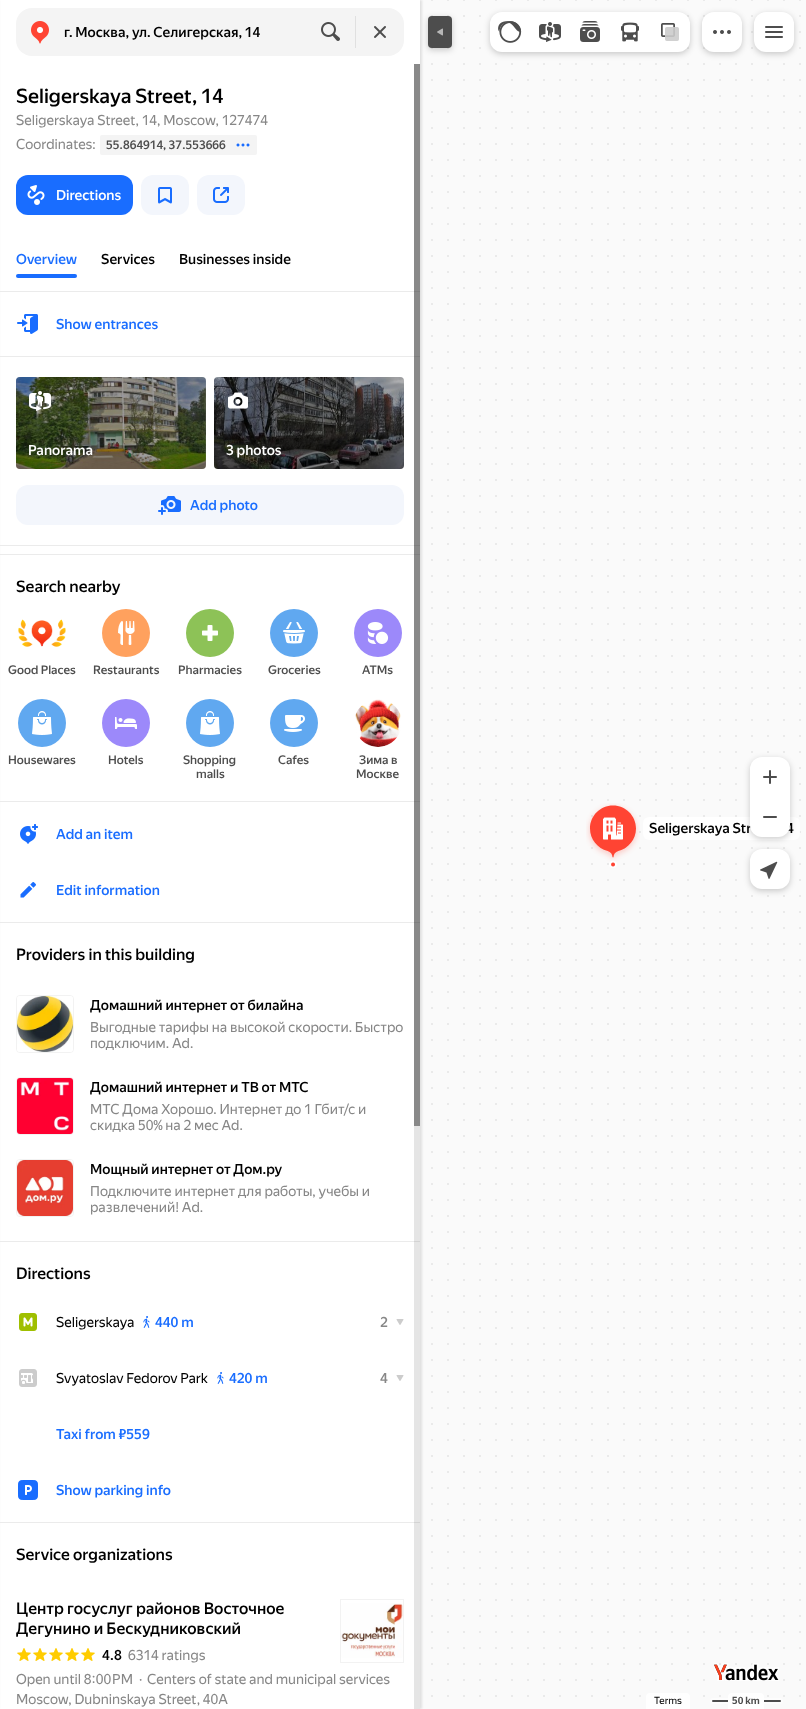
async function draw(canvas) {
	canvas.width = 806;
	canvas.height = 1709;
	const c = canvas.getContext('2d');
	c.miterLimit = 4;
	c.fontKerning = 'normal';
	async function loadImage(src) {
		const img = new Image();
		img.src = src;
		await img.decode();
		return img;
	}

	c.fillStyle = '#fff';
	c.fillRect(0, 0, 806, 1709);
	c.drawImage(await loadImage('img1.png'), 420, 0, 386, 1709);
	c.fillStyle = '#0000001a';
	c.filter = 'blur(1px)';
	c.beginPath();
	c.rect(2, 0, 420, 1709);
	c.fill();
	c.filter = 'none';
	c.fillStyle = '#00000033';
	c.filter = 'blur(3px)';
	c.beginPath();
	c.roundRect(428, 18, 24, 32, 4);
	c.fill();
	c.filter = 'none';
	c.fillStyle = '#fff';
	c.fillRect(1, 0, 419, 1709);
	c.fillStyle = '#f4f4f4';
	c.beginPath();
	c.roundRect(16, 8, 388, 48, 16);
	c.fill();
	c.drawImage(await loadImage('img2.png'), 31, 21, 18, 23);
	c.font = '500 14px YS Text';
	c.fillStyle = '#000';
	c.fillText('г. Москва, ул. Селигерская, 14', 64, 37);
	c.drawImage(await loadImage('img3.png'), 321, 22, 19, 19);
	c.fillStyle = '#e0e0e0';
	c.fillRect(355, 16, 1, 32);
	c.drawImage(await loadImage('img4.png'), 374, 26, 12, 12);
	c.fillStyle = '#00000033';
	c.filter = 'blur(3px)';
	c.beginPath();
	c.roundRect(490, 14, 200, 40, 12);
	c.fill();
	c.filter = 'none';
	c.fillStyle = '#fff';
	c.beginPath();
	c.roundRect(490, 12, 40, 40, [12, 0, 0, 12]);
	c.fill();
	c.drawImage(await loadImage('img5.png'), 498, 21, 24, 22);
	c.fillRect(530, 12, 120, 40);
	c.drawImage(await loadImage('img6.png'), 539, 22, 22, 20);
	c.beginPath();
	c.roundRect(650, 12, 40, 40, [0, 12, 12, 0]);
	c.fill();
	c.drawImage(await loadImage('img7.png'), 661, 23, 18, 18);
	c.drawImage(await loadImage('img8.png'), 580, 21, 20, 21);
	c.drawImage(await loadImage('img9.png'), 621, 22, 18, 20);
	c.fillStyle = '#00000033';
	c.filter = 'blur(3px)';
	c.beginPath();
	c.roundRect(702, 14, 40, 40, 12);
	c.fill();
	c.filter = 'none';
	c.fillStyle = '#fff';
	c.beginPath();
	c.roundRect(702, 12, 40, 40, 12);
	c.fill();
	c.drawImage(await loadImage('img10.png'), 713, 30, 18, 4);
	c.fillStyle = '#00000033';
	c.filter = 'blur(3px)';
	c.beginPath();
	c.roundRect(754, 14, 40, 40, 12);
	c.fill();
	c.filter = 'none';
	c.fillStyle = '#fff';
	c.beginPath();
	c.roundRect(754, 12, 40, 40, 12);
	c.fill();
	c.drawImage(await loadImage('img11.png'), 765, 26, 18, 12);
	c.fillStyle = '#ffffffe6';
	c.beginPath();
	c.roundRect(643, 817, 157, 23, 6);
	c.fill();
	c.fillStyle = '#00000033';
	c.filter = 'blur(3px)';
	c.beginPath();
	c.roundRect(750, 759, 40, 80, 12);
	c.fill();
	c.filter = 'none';
	c.fillStyle = '#fff';
	c.beginPath();
	c.roundRect(750, 757, 40, 40, [12, 12, 0, 0]);
	c.fill();
	c.drawImage(await loadImage('img12.png'), 763, 770, 14, 14);
	c.fillStyle = '#000';
	c.fillText('Seligerskaya Str', 649, 833);
	c.fillText('4', 786, 833);
	c.fillStyle = '#fff';
	c.beginPath();
	c.roundRect(750, 797, 40, 40, [0, 0, 12, 12]);
	c.fill();
	c.drawImage(await loadImage('img13.png'), 763, 816, 14, 2);
	c.fillStyle = '#00000033';
	c.filter = 'blur(3px)';
	c.beginPath();
	c.roundRect(750, 851, 40, 40, 12);
	c.fill();
	c.filter = 'none';
	c.fillStyle = '#fff';
	c.beginPath();
	c.roundRect(750, 849, 40, 40, 12);
	c.fill();
	c.drawImage(await loadImage('img14.png'), 760, 861, 18, 18);
	c.fillStyle = '#4d4d4d';
	c.beginPath();
	c.roundRect(428, 16, 24, 32, 4);
	c.fill();
	c.drawImage(await loadImage('img15.png'), 437, 28, 6, 8);
	c.font = '500 20px YS Text';
	c.fillStyle = '#000';
	c.fillText('Seligerskaya Street, 14', 16, 103);
	c.font = '14px YS Text';
	c.fillStyle = '#878787';
	c.fillText('Seligerskaya Street, 14, Moscow, 127474', 16, 125);
	c.fillText('Coordinates:', 16, 149);
	c.fillStyle = '#f4f4f4';
	c.beginPath();
	c.roundRect(100, 135, 157, 20, 2);
	c.fill();
	c.font = '500 12px YS Text';
	c.fillStyle = '#4d4d4d';
	c.fillText('55.864914, 37.553666', 106, 149);
	c.drawImage(await loadImage('img16.png'), 236, 143, 14, 4);
	c.fillStyle = '#196dff';
	c.beginPath();
	c.roundRect(16, 175, 117, 40, 12);
	c.fill();
	c.drawImage(await loadImage('img17.png'), 27, 185, 18, 20);
	c.font = '500 14px YS Text';
	c.fillStyle = '#fff';
	c.fillText('Directions', 56, 200);
	c.fillStyle = '#f3f6fc';
	c.beginPath();
	c.roundRect(141, 175, 48, 40, 12);
	c.fill();
	c.drawImage(await loadImage('img18.png'), 158, 187, 14, 17);
	c.beginPath();
	c.roundRect(197, 175, 48, 40, 12);
	c.fill();
	c.drawImage(await loadImage('img19.png'), 213, 187, 16, 16);
	c.fillStyle = '#196dff';
	c.fillText('Overview', 16, 264);
	c.fillStyle = '#000';
	c.fillText('Services', 101, 264);
	c.fillText('Businesses inside', 179, 264);
	c.fillStyle = '#196dff';
	c.beginPath();
	c.roundRect(16, 274, 61, 4, 2);
	c.fill();
	c.fillStyle = '#ebebeb';
	c.fillRect(0, 291, 420, 1);
	c.fillRect(0, 356, 420, 1);
	c.drawImage(await loadImage('img20.png'), 17, 314, 21, 20);
	c.fillStyle = '#196dff';
	c.fillText('Show entrances', 56, 329);
	c.fillStyle = '#ebebeb';
	c.fillRect(0, 545, 420, 1);
	c.drawImage(await loadImage('img21.png'), 16, 377, 190, 92);
	c.fillStyle = '#0000004d';
	c.beginPath();
	c.roundRect(16, 377, 190, 92, 4);
	c.fill();
	c.drawImage(await loadImage('img22.png'), 29, 391, 22, 20);
	c.fillStyle = '#fff';
	c.fillText('Panorama', 28, 455);
	c.drawImage(await loadImage('img23.png'), 214, 377, 190, 92);
	c.fillStyle = '#0000004d';
	c.beginPath();
	c.roundRect(214, 377, 190, 92, 4);
	c.fill();
	c.drawImage(await loadImage('img24.png'), 228, 392, 20, 17);
	c.fillStyle = '#fff';
	c.fillText('3 photos', 226, 455);
	c.fillStyle = '#f3f6fc';
	c.beginPath();
	c.roundRect(16, 485, 388, 40, 12);
	c.fill();
	c.drawImage(await loadImage('img25.png'), 158, 496, 23, 19);
	c.fillStyle = '#196dff';
	c.fillText('Add photo', 190, 510);
	c.fillStyle = '#ebebeb';
	c.fillRect(0, 554, 420, 1);
	c.fillRect(0, 801, 420, 1);
	c.font = '500 16px YS Text';
	c.fillStyle = '#000';
	c.fillText('Search nearby', 16, 592);
	c.drawImage(await loadImage('img26.png'), 18, 619, 48, 28);
	c.font = '500 12px YS Text';
	c.fillStyle = '#4d4d4d';
	c.fillText('Good Places', 8, 674);
	c.fillStyle = '#ffa15e';
	c.beginPath();
	c.arc(126, 633, 24, 0, 2 * Math.PI);
	c.fill();
	c.drawImage(await loadImage('img27.png'), 118, 621, 17, 24);
	c.fillStyle = '#4d4d4d';
	c.fillText('Restaurants', 93, 674);
	c.fillStyle = '#8dc257';
	c.beginPath();
	c.arc(210, 633, 24, 0, 2 * Math.PI);
	c.fill();
	c.drawImage(await loadImage('img28.png'), 202, 625, 16, 16);
	c.fillStyle = '#4d4d4d';
	c.fillText('Pharmacies', 178, 674);
	c.fillStyle = '#60a8f0';
	c.beginPath();
	c.arc(294, 633, 24, 0, 2 * Math.PI);
	c.fill();
	c.drawImage(await loadImage('img29.png'), 283, 622, 22, 22);
	c.fillStyle = '#4d4d4d';
	c.fillText('Groceries', 268, 674);
	c.fillStyle = '#9c89fa';
	c.beginPath();
	c.arc(378, 633, 24, 0, 2 * Math.PI);
	c.fill();
	c.drawImage(await loadImage('img30.png'), 367, 622, 22, 22);
	c.fillStyle = '#4d4d4d';
	c.fillText('ATMs', 362, 674);
	c.fillStyle = '#60a8f0';
	c.beginPath();
	c.arc(42, 723, 24, 0, 2 * Math.PI);
	c.fill();
	c.drawImage(await loadImage('img31.png'), 32, 711, 20, 24);
	c.fillStyle = '#4d4d4d';
	c.fillText('Housewares', 8, 764);
	c.fillStyle = '#9c89fa';
	c.beginPath();
	c.arc(126, 723, 24, 0, 2 * Math.PI);
	c.fill();
	c.drawImage(await loadImage('img32.png'), 115, 717, 22, 12);
	c.fillStyle = '#4d4d4d';
	c.fillText('Hotels', 108, 764);
	c.fillStyle = '#60a8f0';
	c.beginPath();
	c.arc(210, 723, 24, 0, 2 * Math.PI);
	c.fill();
	c.drawImage(await loadImage('img31.png'), 200, 711, 20, 24);
	c.fillStyle = '#4d4d4d';
	c.fillText('Shopping', 183, 764);
	c.fillText('malls', 196, 778);
	c.fillStyle = '#60a8f0';
	c.beginPath();
	c.arc(294, 723, 24, 0, 2 * Math.PI);
	c.fill();
	c.drawImage(await loadImage('img33.png'), 284, 715, 21, 17);
	c.fillStyle = '#4d4d4d';
	c.fillText('Cafes', 278, 764);
	c.drawImage(await loadImage('img34.png'), 355, 699, 46, 48);
	c.fillText('Зима в', 359, 764);
	c.fillText('Москве', 356, 778);
	c.fillStyle = '#ebebeb';
	c.fillRect(0, 922, 420, 1);
	c.drawImage(await loadImage('img35.png'), 20, 824, 18, 20);
	c.font = '500 14px YS Text';
	c.fillStyle = '#196dff';
	c.fillText('Add an item', 56, 839);
	c.drawImage(await loadImage('img36.png'), 20, 882, 16, 16);
	c.fillText('Edit information', 56, 895);
	c.fillStyle = '#ebebeb';
	c.fillRect(0, 1241, 420, 1);
	c.font = '500 16px YS Text';
	c.fillStyle = '#000';
	c.fillText('Providers in this building', 16, 960);
	c.beginPath();
	c.roundRect(16.5, 995.5, 57, 57, 3.5);
	c.strokeStyle = '#f2f2f2';
	c.stroke();
	c.drawImage(await loadImage('img37.png'), 17, 996, 56, 56);
	c.font = '500 14px YS Text';
	c.fillText('Домашний интернет от билайна', 90, 1010);
	c.font = '14px YS Text';
	c.fillStyle = '#878787';
	c.fillText('Выгодные тарифы на высокой скорости. Быстро', 90, 1032);
	c.fillText('подключим. Ad.', 90, 1048);
	c.beginPath();
	c.roundRect(16.5, 1077.5, 57, 57, 3.5);
	c.stroke();
	c.drawImage(await loadImage('img38.png'), 17, 1078, 56, 56);
	c.font = '500 14px YS Text';
	c.fillStyle = '#000';
	c.fillText('Домашний интернет и ТВ от МТС', 90, 1092);
	c.font = '14px YS Text';
	c.fillStyle = '#878787';
	c.fillText('МТС Дома Хорошо. Интернет до 1 Гбит/с и', 90, 1114);
	c.fillText('скидка 50% на 2 мес Ad.', 90, 1130);
	c.beginPath();
	c.roundRect(16.5, 1159.5, 57, 57, 3.5);
	c.stroke();
	c.drawImage(await loadImage('img39.png'), 17, 1160, 56, 56);
	c.font = '500 14px YS Text';
	c.fillStyle = '#000';
	c.fillText('Мощный интернет от Дом.ру', 90, 1174);
	c.font = '14px YS Text';
	c.fillStyle = '#878787';
	c.fillText('Подключите интернет для работы, учебы и', 90, 1196);
	c.fillText('развлечений! Ad.', 90, 1212);
	c.fillStyle = '#ebebeb';
	c.fillRect(0, 1522, 420, 1);
	c.font = '500 16px YS Text';
	c.fillStyle = '#000';
	c.fillText('Directions', 16, 1279);
	c.drawImage(await loadImage('img40.png'), 19, 1313, 18, 18);
	c.font = '14px YS Text';
	c.fillText('Seligerskaya', 56, 1327);
	c.drawImage(await loadImage('img41.png'), 143, 1316, 7, 12);
	c.font = '500 14px YS Text';
	c.fillStyle = '#196dff';
	c.fillText('440 m', 155, 1327);
	c.fillStyle = '#878787';
	c.fillText('2', 380, 1327);
	c.drawImage(await loadImage('img42.png'), 396, 1319, 8, 6);
	c.drawImage(await loadImage('img43.png'), 19, 1369, 18, 18);
	c.font = '14px YS Text';
	c.fillStyle = '#000';
	c.fillText('Svyatoslav Fedorov Park', 56, 1383);
	c.drawImage(await loadImage('img41.png'), 217, 1372, 7, 12);
	c.font = '500 14px YS Text';
	c.fillStyle = '#196dff';
	c.fillText('420 m', 229, 1383);
	c.fillStyle = '#878787';
	c.fillText('4', 380, 1383);
	c.drawImage(await loadImage('img42.png'), 396, 1375, 8, 6);
	c.fillStyle = '#196dff';
	c.fillText('Taxi from ₽559', 56, 1439);
	c.drawImage(await loadImage('img44.png'), 18, 1480, 20, 20);
	c.fillText('Show parking info', 56, 1495);
	c.font = '500 16px YS Text';
	c.fillStyle = '#000';
	for (const [text, x, y] of [
		['Service organizations', 16, 1560],
		['Центр госуслуг районов Восточное', 16, 1614],
		['Дегунино и Бескудниковский', 16, 1634],
	]) {
		c.fillText(text, x, y);
	}
	c.drawImage(await loadImage('img45.png'), 341, 1603, 62, 55);
	c.strokeStyle = '#0000000d';
	c.strokeRect(340.5, 1599.5, 63, 63);
	c.drawImage(await loadImage('img46.png'), 17, 1648, 14, 13);
	c.drawImage(await loadImage('img46.png'), 33, 1648, 14, 13);
	c.drawImage(await loadImage('img46.png'), 49, 1648, 14, 13);
	c.drawImage(await loadImage('img46.png'), 65, 1648, 14, 13);
	c.drawImage(await loadImage('img46.png'), 81, 1648, 14, 13);
	c.font = '500 14px YS Text';
	c.fillText('4.8', 102, 1660);
	c.font = '14px YS Text';
	c.fillStyle = '#878787';
	for (const [text, x, y] of [
		['6314 ratings', 128, 1660],
		['Open until 8:00 PM', 16, 1684],
		['·', 139, 1684],
		['Centers of state and municipal services', 147, 1684],
		['Moscow, Dubninskaya Street, 40А', 16, 1704],
	]) {
		c.fillText(text, x, y);
	}
	c.fillStyle = '#0000001a';
	c.fillRect(414, 64, 6, 1645);
	c.fillStyle = '#00000066';
	c.fillRect(414, 64, 6, 1062);
	c.drawImage(await loadImage('img47.png'), 714, 1663, 65, 18);
	c.fillStyle = '#fff';
	c.beginPath();
	c.roundRect(646, 1693, 44, 16, [4, 4, 0, 0]);
	c.fill();
	c.font = '10px YS Text';
	c.fillStyle = '#000';
	c.fillText('Terms', 654, 1704);
	c.fillStyle = '#fdfdfd';
	c.beginPath();
	c.roundRect(710, 1698, 73, 6, 3);
	c.fill();
	c.fillStyle = '#4d4d4d';
	c.beginPath();
	c.roundRect(712, 1700, 69, 2, 1);
	c.fill();
	c.fillStyle = '#fff';
	c.beginPath();
	c.roundRect(728, 1693, 36, 16, [4, 4, 0, 0]);
	c.fill();
	c.font = 'bold 10px YS Text';
	c.fillStyle = '#4d4d4d';
	c.fillText('50 km', 732, 1704);
	c.drawImage(await loadImage('img48.png'), 586, 803, 54, 65);
	c.drawImage(await loadImage('img49.png'), 603, 817, 20, 23);
}

draw(document.querySelector('canvas'));
